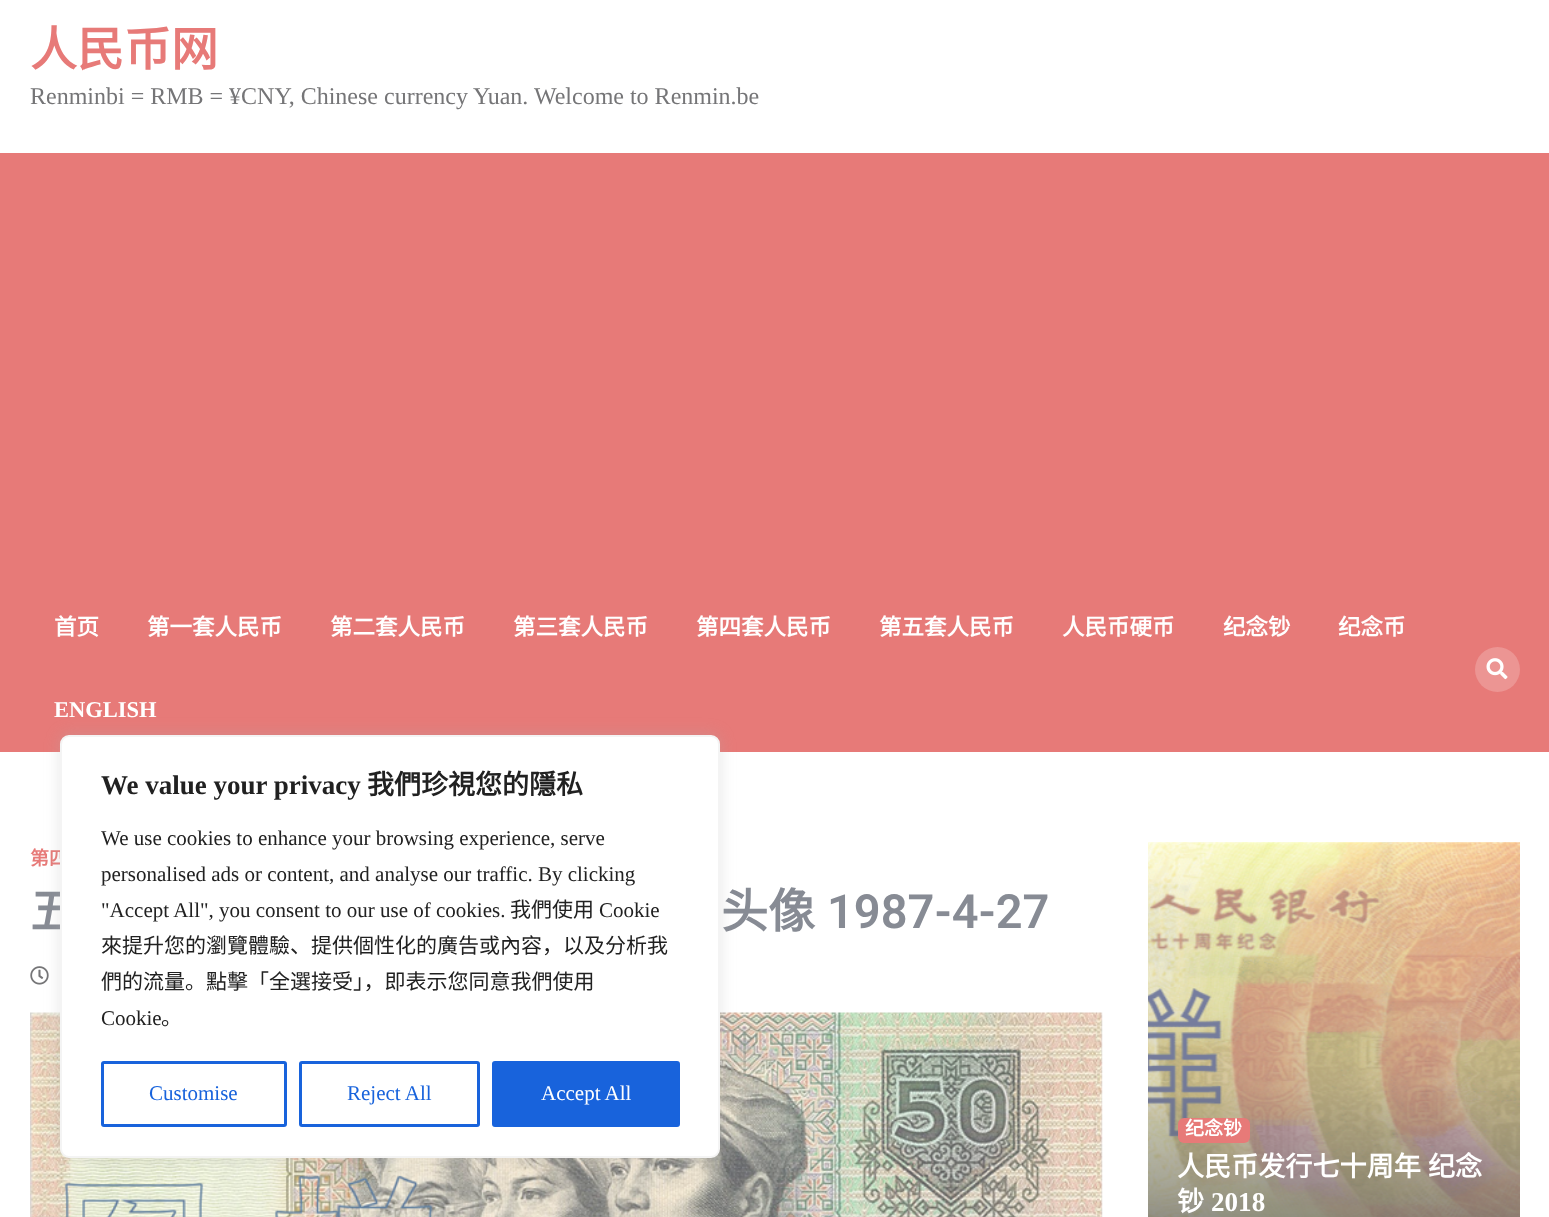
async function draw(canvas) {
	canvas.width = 1549;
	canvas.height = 1217;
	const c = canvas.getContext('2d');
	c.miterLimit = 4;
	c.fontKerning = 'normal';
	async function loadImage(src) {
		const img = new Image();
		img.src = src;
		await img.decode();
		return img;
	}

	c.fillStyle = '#fff';
	c.fillRect(0, 0, 1549, 1217);
	c.font = 'bold 47px Noto Sans CJK SC';
	c.fillStyle = '#e77a78';
	c.fillText('人民币网', 30, 66);
	c.font = '24px Liberation Serif';
	c.fillStyle = '#757577';
	c.fillText('Renminbi = RMB = ¥CNY, Chinese currency Yuan. Welcome to Renmin.be', 30, 104);
	c.fillStyle = '#e77a78';
	c.fillRect(0, 153, 1549, 599);
	c.font = 'bold 22.5px Noto Sans CJK SC';
	c.fillStyle = '#fff';
	for (const [text, x, y] of [
		['首页', 54, 635],
		['第一套人民币', 147, 635],
		['第二套人民币', 330, 635],
		['第三套人民币', 513, 635],
		['第四套人民币', 696, 635],
		['第五套人民币', 879, 635],
		['人民币硬币', 1062, 635],
		['纪念钞', 1223, 635],
		['纪念币', 1338, 635],
	]) {
		c.fillText(text, x, y);
	}
	c.font = 'bold 22.5px Liberation Serif';
	c.fillText('ENGLISH', 54, 717);
	c.fillStyle = '#ec9593';
	c.beginPath();
	c.arc(1497.5, 669.5, 22.5, 0, 2 * Math.PI);
	c.fill();
	c.drawImage(await loadImage('img1.png'), 1486, 658, 22, 22);
	c.font = 'bold 19px Noto Sans CJK SC';
	c.fillStyle = '#e77a78';
	c.fillText('第四', 30, 865);
	c.wordSpacing = '1px';
	c.font = 'bold 47px Noto Sans CJK SC';
	c.fillStyle = '#878b94';
	c.fillText('五', 30, 928);
	c.fillText('头像', 721, 928);
	c.wordSpacing = '0px';
	c.font = '600 47px Roboto';
	c.fillText('1987-4-27', 827, 928);
	c.drawImage(await loadImage('img2.png'), 30, 966, 19, 19);
	c.drawImage(await loadImage('img3.png'), 30, 1012, 1073, 205);
	c.drawImage(await loadImage('img4.png'), 1148, 842, 372, 375);
	c.fillStyle = '#e77a78';
	c.beginPath();
	c.roundRect(1178, 1118, 72, 25, 6);
	c.fill();
	c.font = 'bold 19px Noto Sans CJK SC';
	c.fillStyle = '#fff';
	c.fillText('纪念钞', 1185, 1135);
	c.wordSpacing = '1px';
	c.font = 'bold 27.1px Noto Sans CJK SC';
	c.fillText('人民币发行七十周年 纪念', 1177, 1176);
	c.wordSpacing = '0px';
	c.fillText('钞', 1177, 1211);
	c.font = 'bold 27.1px Liberation Serif';
	c.fillText('2018', 1211, 1211);
	c.fillStyle = '#acabab4d';
	c.filter = 'blur(7.5px)';
	c.beginPath();
	c.roundRect(60, 734, 660, 423, 9);
	c.fill();
	c.filter = 'none';
	c.fillStyle = '#fff';
	c.beginPath();
	c.roundRect(61, 736, 658, 421, 8);
	c.fill();
	c.strokeStyle = '#f4f4f4';
	c.lineWidth = 2;
	c.stroke();
	c.font = 'bold 27px Liberation Serif';
	c.fillStyle = '#212121';
	c.fillText('We value your privacy', 101, 794);
	c.font = 'bold 27px Noto Sans CJK SC';
	c.fillText('我們珍視您的隱私', 367, 794);
	c.font = '21px Liberation Serif';
	for (const [text, x, y] of [
		['We use cookies to enhance your browsing experience, serve', 101, 845],
		['personalised ads or content, and analyse our traffic. By clicking', 101, 881],
		['"Accept All", you consent to our use of cookies.', 101, 917],
	]) {
		c.fillText(text, x, y);
	}
	c.font = '21px Noto Sans CJK SC';
	c.fillText('我們使用', 510, 917);
	c.font = '21px Liberation Serif';
	c.fillText('Cookie', 599, 917);
	c.font = '21px Noto Sans CJK SC';
	c.fillText('來提升您的瀏覽體驗、提供個性化的廣告或內容，以及分析我', 101, 953);
	c.fillText('們的流量。點擊「全選接受」，即表示您同意我們使用', 101, 989);
	c.font = '21px Liberation Serif';
	c.fillText('Cookie', 101, 1025);
	c.font = '21px Noto Sans CJK SC';
	c.fillText('。', 161, 1025);
	c.beginPath();
	c.roundRect(102.5, 1062.5, 183, 63, 1.5);
	c.strokeStyle = '#1863dc';
	c.lineWidth = 3;
	c.stroke();
	c.font = '21px Liberation Serif';
	c.fillStyle = '#1863dc';
	c.fillText('Customise', 149, 1100);
	c.beginPath();
	c.roundRect(300.5, 1062.5, 178, 63, 1.5);
	c.stroke();
	c.fillText('Reject All', 347, 1100);
	c.beginPath();
	c.roundRect(493.5, 1062.5, 185, 63, 1.5);
	c.fill();
	c.stroke();
	c.fillStyle = '#fff';
	c.fillText('Accept All', 541, 1100);
}

draw(document.querySelector('canvas'));
